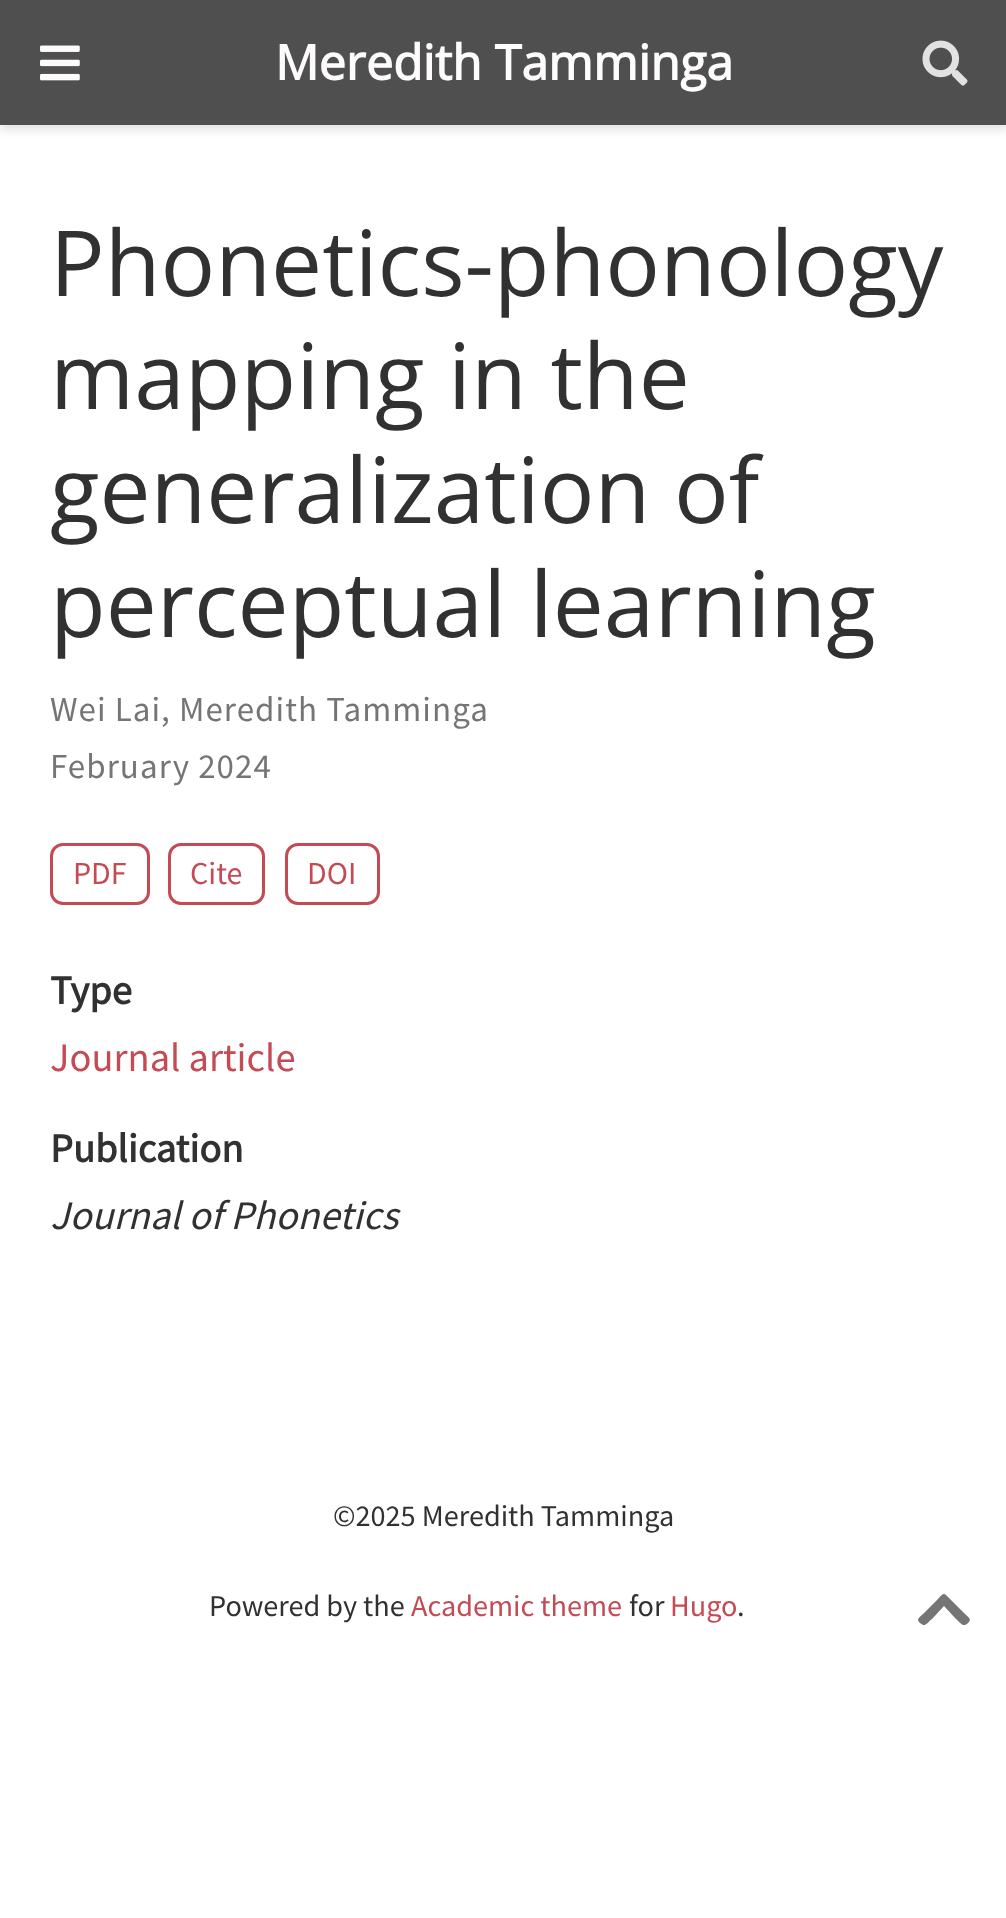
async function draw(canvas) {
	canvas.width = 1006;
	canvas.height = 1918;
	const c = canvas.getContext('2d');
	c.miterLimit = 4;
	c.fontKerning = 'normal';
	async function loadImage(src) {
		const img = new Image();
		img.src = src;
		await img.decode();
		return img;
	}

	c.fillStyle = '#fff';
	c.fillRect(0, 0, 1006, 1918);
	c.fillStyle = '#0000001c';
	c.filter = 'blur(5px)';
	c.beginPath();
	c.rect(0, 5, 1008, 125);
	c.fill();
	c.filter = 'none';
	c.fillStyle = '#4f4f4f';
	c.fillRect(0, 0, 1006, 125);
	c.drawImage(await loadImage('img1.png'), 40, 45, 40, 36);
	c.font = 'bold 48.5px Open Sans';
	c.fillStyle = '#fdfbfb';
	c.fillText('Meredith Tamminga', 275, 80);
	c.drawImage(await loadImage('img2.png'), 922, 40, 46, 46);
	c.font = '91px Open Sans';
	c.fillStyle = '#313131';
	for (const [text, x, y] of [
		['Phonetics-phonology', 50, 296],
		['mapping in the', 50, 409],
		['generalization of', 50, 523],
		['perceptual learning', 50, 637],
	]) {
		c.fillText(text, x, y);
	}
	c.letterSpacing = '1.05px';
	c.font = '35px Source Sans Pro';
	c.fillStyle = '#757575';
	c.fillText('Wei Lai, Meredith Tamminga', 50, 721);
	c.fillText('February 2024', 50, 778);
	c.beginPath();
	c.roundRect(51.5, 844.5, 97, 59, 11.5);
	c.strokeStyle = '#c44a53';
	c.lineWidth = 3;
	c.stroke();
	c.letterSpacing = '0px';
	c.font = '32px Source Sans Pro';
	c.fillStyle = '#c44a53';
	c.fillText('PDF', 73, 884);
	c.beginPath();
	c.roundRect(169.5, 844.5, 94, 59, 11.5);
	c.stroke();
	c.fillText('Cite', 190, 884);
	c.beginPath();
	c.roundRect(286.5, 844.5, 92, 59, 11.5);
	c.stroke();
	c.fillText('DOI', 307, 884);
	c.font = 'bold 40.5px Source Sans Pro';
	c.fillStyle = '#313131';
	c.fillText('Type', 50, 1004);
	c.font = '40.5px Source Sans Pro';
	c.fillStyle = '#c44a53';
	c.fillText('Journal article', 50, 1071);
	c.font = 'bold 40.5px Source Sans Pro';
	c.fillStyle = '#313131';
	c.fillText('Publication', 50, 1162);
	c.font = 'italic 40.5px Source Sans Pro';
	c.fillText('Journal of Phonetics', 50, 1229);
	c.font = '30.25px Source Sans Pro';
	c.fillText('©2025 Meredith Tamminga', 333, 1526);
	c.fillText('Powered by the', 209, 1616);
	c.fillStyle = '#c44a53';
	c.fillText('Academic theme', 411, 1616);
	c.fillStyle = '#313131';
	c.fillText('for', 629, 1616);
	c.fillStyle = '#c44a53';
	c.fillText('Hugo', 670, 1616);
	c.fillStyle = '#313131';
	c.fillText('.', 737, 1616);
	c.fillStyle = '#757575';
	c.beginPath();
	c.moveTo(946, 1595);
	c.lineTo(965, 1614);
	c.bezierCurveTo(969, 1618, 972, 1619, 968, 1623);
	c.bezierCurveTo(963, 1628, 961, 1623, 956, 1619);
	c.lineTo(944, 1606);
	c.lineTo(932, 1619);
	c.bezierCurveTo(930, 1620, 926, 1626, 923, 1625);
	c.lineTo(920, 1623);
	c.bezierCurveTo(916, 1619, 919, 1618, 923, 1614);
	c.lineTo(938, 1599);
	c.bezierCurveTo(940, 1597, 943, 1592, 946, 1595);
	c.closePath();
	c.fill();
}

draw(document.querySelector('canvas'));
